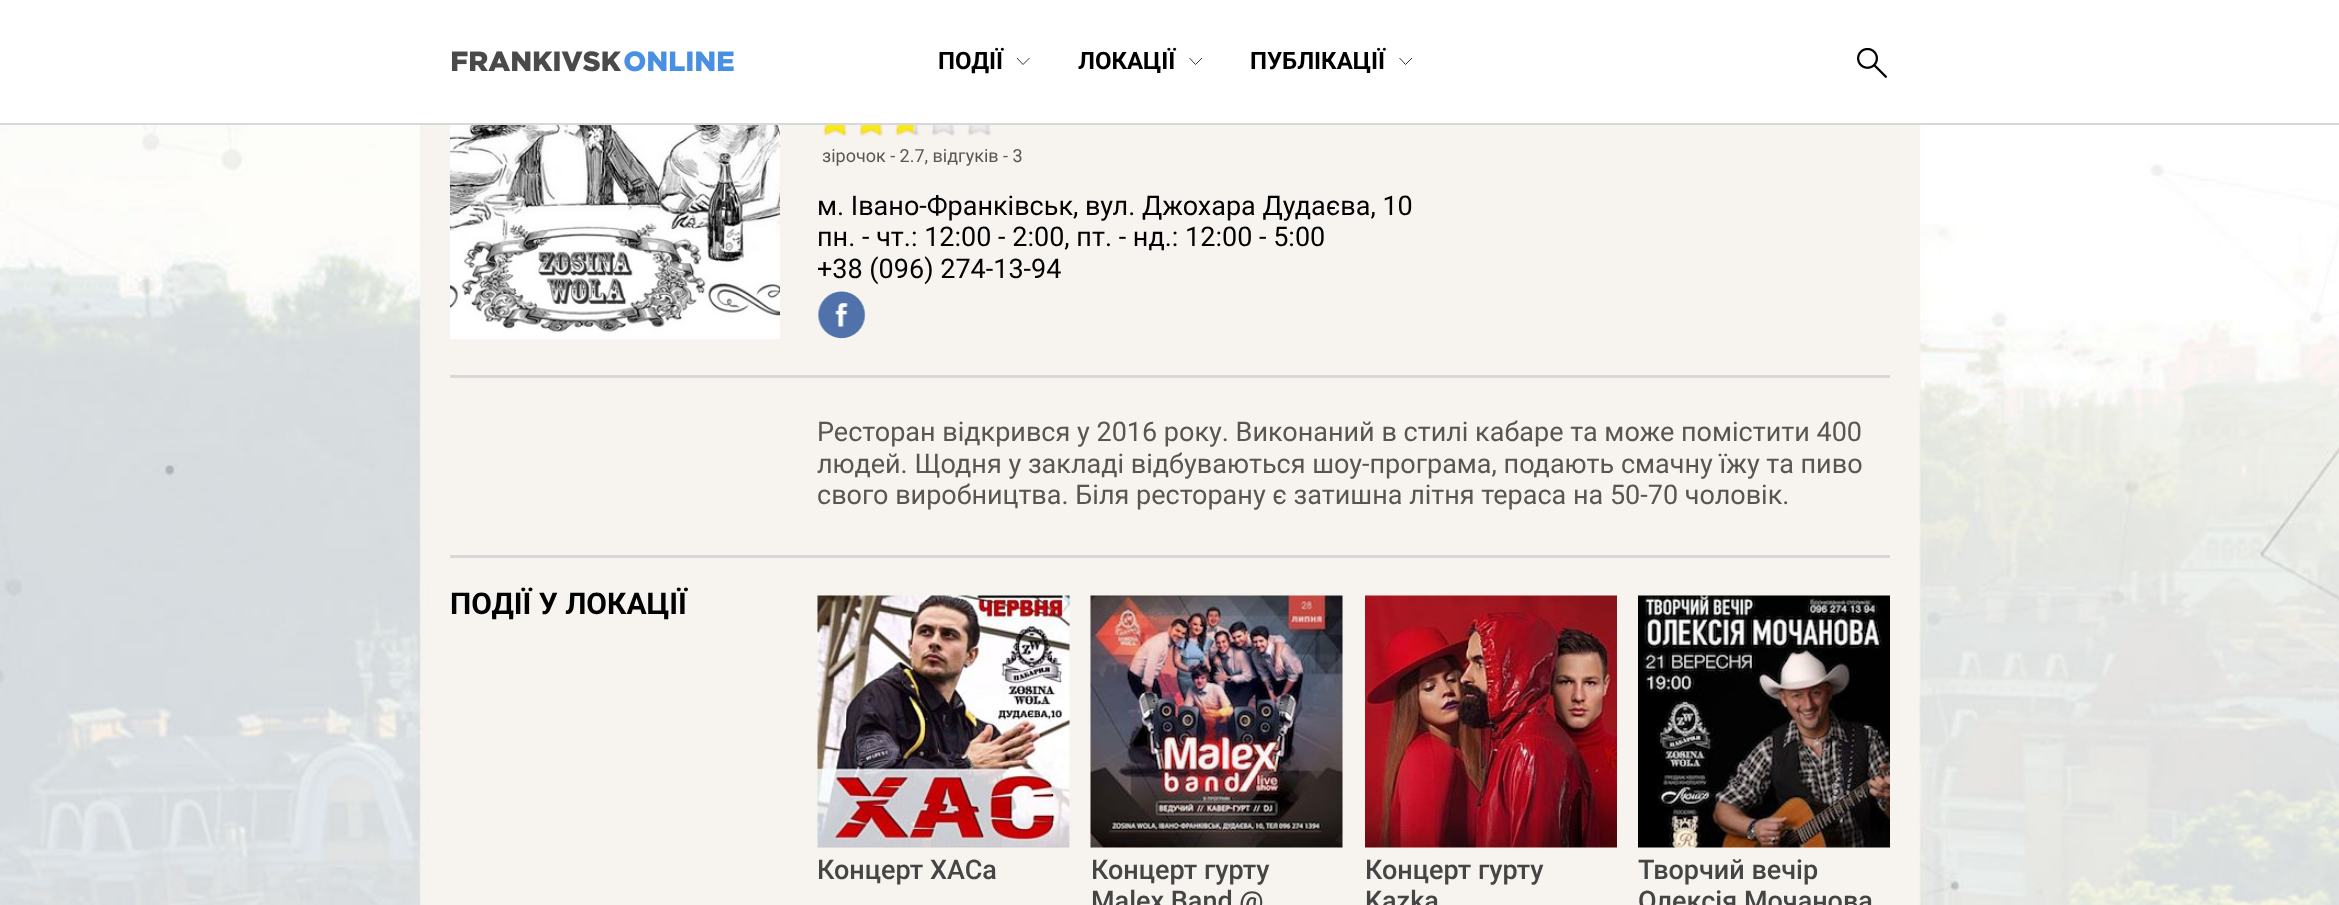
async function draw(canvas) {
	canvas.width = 2339;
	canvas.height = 905;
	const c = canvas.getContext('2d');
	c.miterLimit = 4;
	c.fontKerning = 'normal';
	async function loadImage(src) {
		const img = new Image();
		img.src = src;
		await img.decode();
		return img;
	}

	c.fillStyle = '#fff';
	c.fillRect(0, 0, 2339, 905);
	c.fillStyle = '#d8d8d8';
	c.fillRect(0, 123, 2339, 2);
	c.drawImage(await loadImage('img1.png'), 452, 51, 282, 21);
	c.font = 'bold 24px Roboto';
	c.fillStyle = '#000';
	c.fillText('ПОДІЇ', 938, 69);
	c.beginPath();
	c.moveTo(1017, 58);
	c.lineTo(1023, 64.5);
	c.lineTo(1029.5, 58);
	c.strokeStyle = '#000';
	c.lineWidth = 0.8;
	c.stroke();
	c.fillText('ЛОКАЦІЇ', 1078, 69);
	c.beginPath();
	c.moveTo(1189.5, 58);
	c.lineTo(1195.5, 64.5);
	c.lineTo(1202, 58);
	c.stroke();
	c.fillText('ПУБЛІКАЦІЇ', 1250, 69);
	c.beginPath();
	c.moveTo(1399.5, 58);
	c.lineTo(1405.5, 64.5);
	c.lineTo(1412, 58);
	c.stroke();
	c.drawImage(await loadImage('img2.png'), 1857, 48, 30, 30);
	c.drawImage(await loadImage('img3.png'), 0, 125, 2339, 780);
	c.drawImage(await loadImage('img4.png'), 823, 125, 169, 11);
	c.drawImage(await loadImage('img5.png'), 823, 125, 91, 11);
	c.font = '18px Roboto';
	c.fillStyle = '#585653';
	c.fillText('зірочок - 2.7, відгуків - 3', 822, 162);
	c.drawImage(await loadImage('img6.png'), 450, 125, 330, 214);
	c.font = '27px Roboto';
	c.fillStyle = '#000';
	for (const [text, x, y] of [
		['м. Івано-Франківськ, вул. Джохара Дудаєва, 10', 817, 215],
		['пн. - чт.: 12:00 - 2:00, пт. - нд.: 12:00 - 5:00', 817, 246],
		['+38 (096) 274-13-94', 817, 278],
	]) {
		c.fillText(text, x, y);
	}
	c.drawImage(await loadImage('img7.png'), 817, 291, 49, 48);
	c.fillStyle = '#d8d8d8';
	c.fillRect(450, 375, 1440, 3);
	c.fillStyle = '#585653';
	for (const [text, x, y] of [
		['Ресторан відкрився у 2016 року. Виконаний в стилі кабаре та може помістити 400', 817, 441],
		['людей. Щодня у закладі відбуваються шоу-програма, подають смачну їжу та пиво', 817, 473],
		['свого виробництва. Біля ресторану є затишна літня тераса на 50-70 чоловік.', 817, 504],
	]) {
		c.fillText(text, x, y);
	}
	c.font = 'bold 30px Roboto';
	c.fillStyle = '#000';
	c.fillText('ПОДІЇ У ЛОКАЦІЇ', 450, 614);
	c.fillStyle = '#d8d8d8';
	c.fillRect(450, 555, 1440, 3);
	c.drawImage(await loadImage('img8.png'), 817, 595, 253, 253);
	c.font = '500 27px Roboto';
	c.fillStyle = '#454545';
	c.fillText('Концерт ХАСа', 817, 879);
	c.drawImage(await loadImage('img9.png'), 1090, 595, 253, 253);
	c.fillText('Концерт гурту', 1091, 879);
	c.fillText('Malex Band @', 1091, 910);
	c.drawImage(await loadImage('img10.png'), 1365, 595, 252, 253);
	c.fillText('Концерт гурту', 1365, 879);
	c.fillText('Kazka', 1365, 910);
	c.drawImage(await loadImage('img11.png'), 1638, 595, 252, 253);
	c.fillText('Творчий вечір', 1638, 879);
	c.fillText('Олексія Мочанова', 1638, 910);
}

draw(document.querySelector('canvas'));
